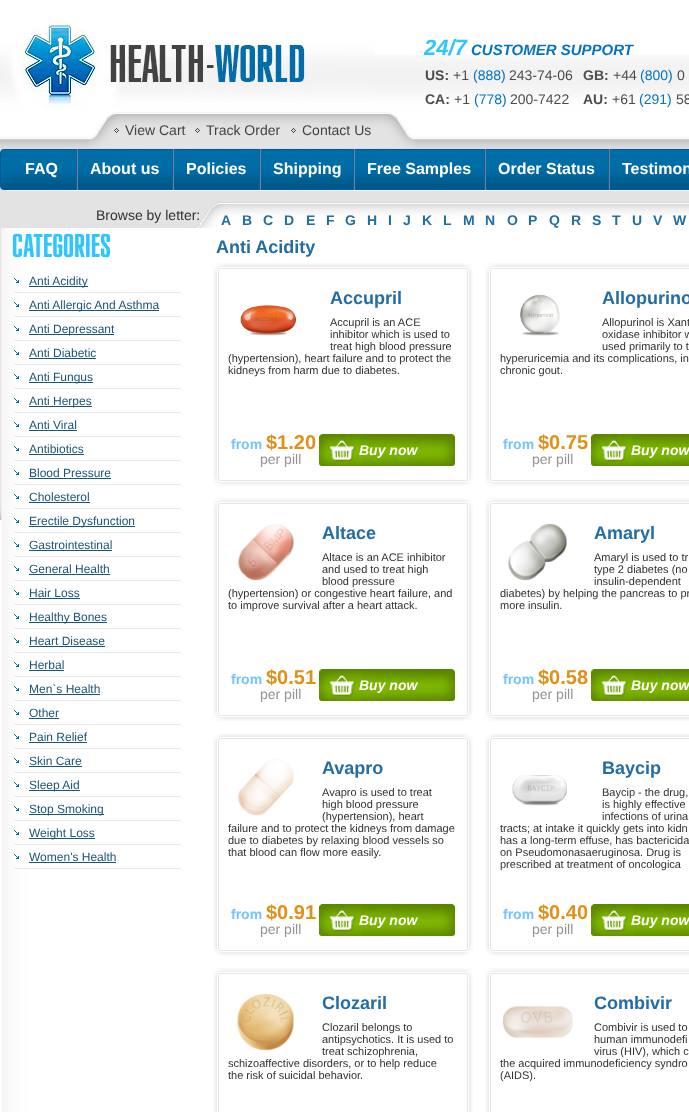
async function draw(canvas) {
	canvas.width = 689;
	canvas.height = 1112;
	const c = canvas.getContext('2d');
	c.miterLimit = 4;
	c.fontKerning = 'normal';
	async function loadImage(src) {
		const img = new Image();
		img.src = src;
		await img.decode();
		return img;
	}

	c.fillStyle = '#fff';
	c.fillRect(0, 0, 689, 1112);
	c.drawImage(await loadImage('img1.png'), 0, 54, 689, 468);
	c.drawImage(await loadImage('img2.png'), 0, 20, 374, 88);
	c.font = 'italic bold 22px Liberation Sans';
	c.fillStyle = '#2fc5ff';
	c.fillText('24/7', 424, 55);
	c.font = 'italic bold 15px Liberation Sans';
	c.fillStyle = '#0473c4';
	c.fillText('CUSTOMER SUPPORT', 471, 55);
	c.font = 'bold 14px Liberation Sans';
	c.fillStyle = '#4c4c4c';
	c.fillText('US:', 425, 80);
	c.font = '14px Liberation Sans';
	c.fillText('+1', 453, 80);
	c.fillStyle = '#0473c4';
	c.fillText('(888)', 473, 80);
	c.fillStyle = '#4c4c4c';
	c.fillText('243-74-06', 509, 80);
	c.font = 'bold 14px Liberation Sans';
	c.fillText('GB:', 583, 80);
	c.font = '14px Liberation Sans';
	c.fillText('+44', 613, 80);
	c.fillStyle = '#0473c4';
	c.fillText('(800)', 640, 80);
	c.fillStyle = '#4c4c4c';
	c.fillText('0', 677, 80);
	c.font = 'bold 14px Liberation Sans';
	c.fillText('CA:', 425, 104);
	c.font = '14px Liberation Sans';
	c.fillText('+1', 454, 104);
	c.fillStyle = '#0473c4';
	c.fillText('(778)', 474, 104);
	c.fillStyle = '#4c4c4c';
	c.fillText('200-7422', 510, 104);
	c.font = 'bold 14px Liberation Sans';
	c.fillText('AU:', 583, 104);
	c.font = '14px Liberation Sans';
	c.fillText('+61', 612, 104);
	c.fillStyle = '#0473c4';
	c.fillText('(291)', 639, 104);
	c.fillStyle = '#4c4c4c';
	c.fillText('58', 676, 104);
	c.drawImage(await loadImage('img3.png'), 88, 112, 328, 36);
	c.drawImage(await loadImage('img4.png'), 114, 128, 5, 5);
	c.fillStyle = '#434343';
	c.fillText('View Cart', 125, 135);
	c.drawImage(await loadImage('img5.png'), 195, 128, 5, 5);
	c.fillText('Track Order', 206, 135);
	c.drawImage(await loadImage('img6.png'), 291, 128, 5, 5);
	c.fillText('Contact Us', 302, 135);
	c.drawImage(await loadImage('img7.png'), 7, 149, 682, 41);
	c.fillStyle = '#f6f6f6';
	c.fillRect(7, 190, 682, 1);
	c.drawImage(await loadImage('img8.png'), 0, 149, 7, 41);
	c.fillStyle = '#1b5b89';
	c.fillRect(76, 149, 1, 41);
	c.font = 'bold 16px Liberation Sans';
	c.fillStyle = '#fff';
	c.fillText('FAQ', 25, 174);
	c.fillStyle = '#1b5b89';
	c.fillRect(172, 149, 1, 41);
	c.fillStyle = '#5f88ae';
	c.fillRect(77, 149, 1, 41);
	c.fillStyle = '#fff';
	c.fillText('About us', 90, 174);
	c.fillStyle = '#1b5b89';
	c.fillRect(259, 149, 1, 41);
	c.fillStyle = '#5f88ae';
	c.fillRect(173, 149, 1, 41);
	c.fillStyle = '#fff';
	c.fillText('Policies', 186, 174);
	c.fillStyle = '#1b5b89';
	c.fillRect(353, 149, 1, 41);
	c.fillStyle = '#5f88ae';
	c.fillRect(260, 149, 1, 41);
	c.fillStyle = '#fff';
	c.fillText('Shipping', 273, 174);
	c.fillStyle = '#1b5b89';
	c.fillRect(484, 149, 1, 41);
	c.fillStyle = '#5f88ae';
	c.fillRect(354, 149, 1, 41);
	c.fillStyle = '#fff';
	c.fillText('Free Samples', 367, 174);
	c.fillStyle = '#1b5b89';
	c.fillRect(608, 149, 1, 41);
	c.fillStyle = '#5f88ae';
	c.fillRect(485, 149, 1, 41);
	c.fillStyle = '#fff';
	c.fillText('Order Status', 498, 174);
	c.fillStyle = '#5f88ae';
	c.fillRect(609, 149, 1, 41);
	c.fillStyle = '#fff';
	c.fillText('Testimon', 622, 174);
	c.drawImage(await loadImage('img9.png'), 186, 202, 503, 26);
	c.font = '14px Liberation Sans';
	c.fillStyle = '#313131';
	c.fillText('Browse by letter:', 96, 220);
	c.font = 'bold 14px Liberation Sans';
	c.fillStyle = '#236da4';
	for (const [text, x, y] of [
		['A', 221, 225],
		['B', 242, 225],
		['C', 263, 225],
		['D', 284, 225],
		['E', 306, 225],
		['F', 326, 225],
		['G', 345, 225],
		['H', 367, 225],
		['I', 388, 225],
		['J', 403, 225],
		['K', 422, 225],
		['L', 443, 225],
		['M', 463, 225],
		['N', 485, 225],
		['O', 507, 225],
		['P', 528, 225],
		['Q', 549, 225],
		['R', 571, 225],
		['S', 592, 225],
		['T', 612, 225],
		['U', 632, 225],
		['V', 653, 225],
		['W', 673, 225],
	]) {
		c.fillText(text, x, y);
	}
	c.drawImage(await loadImage('img10.png'), 1, 228, 688, 884);
	c.font = '30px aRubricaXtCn';
	c.fillStyle = '#2fc5ff';
	c.fillText('CATEGORIES', 12, 257);
	c.fillStyle = '#e9e9e9';
	c.fillRect(14, 292, 167, 1);
	c.drawImage(await loadImage('img11.png'), 14, 278, 5, 5);
	c.fillStyle = '#1c537b';
	c.fillRect(29, 286, 59, 1);
	c.font = '12px Liberation Sans';
	c.fillText('Anti Acidity', 29, 285);
	c.fillStyle = '#e9e9e9';
	c.fillRect(14, 316, 167, 1);
	c.drawImage(await loadImage('img11.png'), 14, 302, 5, 5);
	c.fillStyle = '#1c537b';
	c.fillRect(29, 310, 130, 1);
	c.fillText('Anti Allergic And Asthma', 29, 309);
	c.fillStyle = '#e9e9e9';
	c.fillRect(14, 340, 167, 1);
	c.drawImage(await loadImage('img11.png'), 14, 326, 5, 5);
	c.fillStyle = '#1c537b';
	c.fillRect(29, 334, 85, 1);
	c.fillText('Anti Depressant', 29, 333);
	c.fillStyle = '#e9e9e9';
	c.fillRect(14, 364, 167, 1);
	c.drawImage(await loadImage('img11.png'), 14, 350, 5, 5);
	c.fillStyle = '#1c537b';
	c.fillText('Anti Diabetic', 29, 357);
	c.fillRect(29, 358, 67, 1);
	c.fillStyle = '#e9e9e9';
	c.fillRect(14, 388, 167, 1);
	c.drawImage(await loadImage('img11.png'), 14, 374, 5, 5);
	c.fillStyle = '#1c537b';
	c.fillRect(29, 382, 64, 1);
	c.fillText('Anti Fungus', 29, 381);
	c.fillStyle = '#e9e9e9';
	c.fillRect(14, 412, 167, 1);
	c.drawImage(await loadImage('img11.png'), 14, 398, 5, 5);
	c.fillStyle = '#1c537b';
	c.fillRect(29, 406, 63, 1);
	c.fillText('Anti Herpes', 29, 405);
	c.fillStyle = '#e9e9e9';
	c.fillRect(14, 436, 167, 1);
	c.drawImage(await loadImage('img11.png'), 14, 422, 5, 5);
	c.fillStyle = '#1c537b';
	c.fillText('Anti Viral', 29, 429);
	c.fillRect(29, 430, 48, 1);
	c.fillStyle = '#e9e9e9';
	c.fillRect(14, 460, 167, 1);
	c.drawImage(await loadImage('img11.png'), 14, 446, 5, 5);
	c.fillStyle = '#1c537b';
	c.fillText('Antibiotics', 29, 453);
	c.fillRect(29, 454, 55, 1);
	c.fillStyle = '#e9e9e9';
	c.fillRect(14, 484, 167, 1);
	c.drawImage(await loadImage('img11.png'), 14, 470, 5, 5);
	c.fillStyle = '#1c537b';
	c.fillText('Blood Pressure', 29, 477);
	c.fillRect(29, 478, 82, 1);
	c.fillStyle = '#e9e9e9';
	c.fillRect(14, 508, 167, 1);
	c.drawImage(await loadImage('img11.png'), 14, 494, 5, 5);
	c.fillStyle = '#1c537b';
	c.fillText('Cholesterol', 29, 501);
	c.fillRect(29, 502, 61, 1);
	c.fillStyle = '#e9e9e9';
	c.fillRect(14, 532, 167, 1);
	c.drawImage(await loadImage('img11.png'), 14, 518, 5, 5);
	c.fillStyle = '#1c537b';
	c.fillRect(29, 526, 106, 1);
	c.fillText('Erectile Dysfunction', 29, 525);
	c.fillStyle = '#e9e9e9';
	c.fillRect(14, 556, 167, 1);
	c.drawImage(await loadImage('img11.png'), 14, 542, 5, 5);
	c.fillStyle = '#1c537b';
	c.fillText('Gastrointestinal', 29, 549);
	c.fillRect(29, 550, 83, 1);
	c.fillStyle = '#e9e9e9';
	c.fillRect(14, 580, 167, 1);
	c.drawImage(await loadImage('img11.png'), 14, 566, 5, 5);
	c.fillStyle = '#1c537b';
	c.fillText('General Health', 29, 573);
	c.fillRect(29, 574, 81, 1);
	c.fillStyle = '#e9e9e9';
	c.fillRect(14, 604, 167, 1);
	c.drawImage(await loadImage('img11.png'), 14, 590, 5, 5);
	c.fillStyle = '#1c537b';
	c.fillText('Hair Loss', 29, 597);
	c.fillRect(29, 598, 51, 1);
	c.fillStyle = '#e9e9e9';
	c.fillRect(14, 628, 167, 1);
	c.drawImage(await loadImage('img11.png'), 14, 614, 5, 5);
	c.fillStyle = '#1c537b';
	c.fillRect(29, 622, 78, 1);
	c.fillText('Healthy Bones', 29, 621);
	c.fillStyle = '#e9e9e9';
	c.fillRect(14, 652, 167, 1);
	c.drawImage(await loadImage('img11.png'), 14, 638, 5, 5);
	c.fillStyle = '#1c537b';
	c.fillText('Heart Disease', 29, 645);
	c.fillRect(29, 646, 76, 1);
	c.fillStyle = '#e9e9e9';
	c.fillRect(14, 676, 167, 1);
	c.drawImage(await loadImage('img11.png'), 14, 662, 5, 5);
	c.fillStyle = '#1c537b';
	c.fillText('Herbal', 29, 669);
	c.fillRect(29, 670, 35, 1);
	c.fillStyle = '#e9e9e9';
	c.fillRect(14, 700, 167, 1);
	c.drawImage(await loadImage('img11.png'), 14, 686, 5, 5);
	c.fillStyle = '#1c537b';
	c.fillText('Men`s Health', 29, 693);
	c.fillRect(29, 694, 71, 1);
	c.fillStyle = '#e9e9e9';
	c.fillRect(14, 724, 167, 1);
	c.drawImage(await loadImage('img11.png'), 14, 710, 5, 5);
	c.fillStyle = '#1c537b';
	c.fillText('Other', 29, 717);
	c.fillRect(29, 718, 30, 1);
	c.fillStyle = '#e9e9e9';
	c.fillRect(14, 748, 167, 1);
	c.drawImage(await loadImage('img11.png'), 14, 734, 5, 5);
	c.fillStyle = '#1c537b';
	c.fillText('Pain Relief', 29, 741);
	c.fillRect(29, 742, 58, 1);
	c.fillStyle = '#e9e9e9';
	c.fillRect(14, 772, 167, 1);
	c.drawImage(await loadImage('img11.png'), 14, 758, 5, 5);
	c.fillStyle = '#1c537b';
	c.fillText('Skin Care', 29, 765);
	c.fillRect(29, 766, 53, 1);
	c.fillStyle = '#e9e9e9';
	c.fillRect(14, 796, 167, 1);
	c.drawImage(await loadImage('img11.png'), 14, 782, 5, 5);
	c.fillStyle = '#1c537b';
	c.fillRect(29, 790, 51, 1);
	c.fillText('Sleep Aid', 29, 789);
	c.fillStyle = '#e9e9e9';
	c.fillRect(14, 820, 167, 1);
	c.drawImage(await loadImage('img11.png'), 14, 806, 5, 5);
	c.fillStyle = '#1c537b';
	c.fillRect(29, 814, 75, 1);
	c.fillText('Stop Smoking', 29, 813);
	c.fillStyle = '#e9e9e9';
	c.fillRect(14, 844, 167, 1);
	c.drawImage(await loadImage('img11.png'), 14, 830, 5, 5);
	c.fillStyle = '#1c537b';
	c.fillRect(29, 838, 66, 1);
	c.fillText('Weight Loss', 29, 837);
	c.fillStyle = '#e9e9e9';
	c.fillRect(14, 868, 167, 1);
	c.drawImage(await loadImage('img11.png'), 14, 854, 5, 5);
	c.fillStyle = '#1c537b';
	c.fillText('Women\'s Health', 29, 861);
	c.fillRect(29, 862, 87, 1);
	c.font = 'bold 18px Liberation Sans';
	c.fillStyle = '#236da4';
	c.fillText('Anti Acidity', 216, 253);
	c.drawImage(await loadImage('img12.png'), 213, 263, 260, 223);
	c.fillText('Accupril', 330, 304);
	c.drawImage(await loadImage('img13.png'), 240, 305, 56, 31);
	c.font = '11px Liberation Sans';
	c.fillStyle = '#313131';
	for (const [text, x, y] of [
		['Accupril is an ACE', 330, 326],
		['inhibitor which is used to', 330, 338],
		['treat high blood pressure', 330, 350],
		['(hypertension), heart failure and to protect the', 228, 362],
		['kidneys from harm due to diabetes.', 228, 374],
	]) {
		c.fillText(text, x, y);
	}
	c.font = 'bold 14px Liberation Sans';
	c.fillStyle = '#75c4ff';
	c.fillText('from', 231, 449);
	c.font = 'bold 20px Liberation Sans';
	c.fillStyle = '#e29019';
	c.fillText('$1.20', 266, 449);
	c.font = '14px Liberation Sans';
	c.fillStyle = '#939393';
	c.fillText('per pill', 260, 464);
	c.drawImage(await loadImage('img14.png'), 319, 434, 136, 32);
	c.font = 'italic bold 14px Liberation Sans';
	c.fillStyle = '#fff';
	c.fillText('Buy now', 359, 455);
	c.drawImage(await loadImage('img15.png'), 485, 263, 204, 223);
	c.drawImage(await loadImage('img16.png'), 520, 294, 40, 42);
	c.font = 'bold 18px Liberation Sans';
	c.fillStyle = '#236da4';
	c.fillText('Allopurino', 602, 304);
	c.font = '11px Liberation Sans';
	c.fillStyle = '#313131';
	for (const [text, x, y] of [
		['Allopurinol is Xant', 602, 326],
		['oxidase inhibitor w', 602, 338],
		['used primarily to t', 602, 350],
		['hyperuricemia and its complications, in', 500, 362],
		['chronic gout.', 500, 374],
	]) {
		c.fillText(text, x, y);
	}
	c.font = 'bold 14px Liberation Sans';
	c.fillStyle = '#75c4ff';
	c.fillText('from', 503, 449);
	c.font = 'bold 20px Liberation Sans';
	c.fillStyle = '#e29019';
	c.fillText('$0.75', 538, 449);
	c.font = '14px Liberation Sans';
	c.fillStyle = '#939393';
	c.fillText('per pill', 532, 464);
	c.drawImage(await loadImage('img17.png'), 591, 434, 98, 32);
	c.font = 'italic bold 14px Liberation Sans';
	c.fillStyle = '#fff';
	c.fillText('Buy now', 631, 455);
	c.drawImage(await loadImage('img12.png'), 213, 498, 260, 223);
	c.drawImage(await loadImage('img18.png'), 238, 524, 56, 57);
	c.font = 'bold 18px Liberation Sans';
	c.fillStyle = '#236da4';
	c.fillText('Altace', 322, 539);
	c.font = '11px Liberation Sans';
	c.fillStyle = '#313131';
	for (const [text, x, y] of [
		['Altace is an ACE inhibitor', 322, 561],
		['and used to treat high', 322, 573],
		['blood pressure', 322, 585],
		['(hypertension) or congestive heart failure, and', 228, 597],
		['to improve survival after a heart attack.', 228, 609],
	]) {
		c.fillText(text, x, y);
	}
	c.font = 'bold 14px Liberation Sans';
	c.fillStyle = '#75c4ff';
	c.fillText('from', 231, 684);
	c.font = 'bold 20px Liberation Sans';
	c.fillStyle = '#e29019';
	c.fillText('$0.51', 266, 684);
	c.font = '14px Liberation Sans';
	c.fillStyle = '#939393';
	c.fillText('per pill', 260, 699);
	c.drawImage(await loadImage('img14.png'), 319, 669, 136, 32);
	c.font = 'italic bold 14px Liberation Sans';
	c.fillStyle = '#fff';
	c.fillText('Buy now', 359, 690);
	c.drawImage(await loadImage('img15.png'), 485, 498, 204, 223);
	c.drawImage(await loadImage('img19.png'), 508, 523, 59, 58);
	c.font = 'bold 18px Liberation Sans';
	c.fillStyle = '#236da4';
	c.fillText('Amaryl', 594, 539);
	c.font = '11px Liberation Sans';
	c.fillStyle = '#313131';
	for (const [text, x, y] of [
		['Amaryl is used to tr', 594, 561],
		['type 2 diabetes (no', 594, 573],
		['insulin-dependent', 594, 585],
		['diabetes) by helping the pancreas to pr', 500, 597],
		['more insulin.', 500, 609],
	]) {
		c.fillText(text, x, y);
	}
	c.font = 'bold 14px Liberation Sans';
	c.fillStyle = '#75c4ff';
	c.fillText('from', 503, 684);
	c.font = 'bold 20px Liberation Sans';
	c.fillStyle = '#e29019';
	c.fillText('$0.58', 538, 684);
	c.font = '14px Liberation Sans';
	c.fillStyle = '#939393';
	c.fillText('per pill', 532, 699);
	c.drawImage(await loadImage('img17.png'), 591, 669, 98, 32);
	c.font = 'italic bold 14px Liberation Sans';
	c.fillStyle = '#fff';
	c.fillText('Buy now', 631, 690);
	c.drawImage(await loadImage('img12.png'), 213, 733, 260, 223);
	c.drawImage(await loadImage('img20.png'), 238, 759, 56, 57);
	c.font = 'bold 18px Liberation Sans';
	c.fillStyle = '#236da4';
	c.fillText('Avapro', 322, 774);
	c.font = '11px Liberation Sans';
	c.fillStyle = '#313131';
	for (const [text, x, y] of [
		['Avapro is used to treat', 322, 796],
		['high blood pressure', 322, 808],
		['(hypertension), heart', 322, 820],
		['failure and to protect the kidneys from damage', 228, 832],
		['due to diabetes by relaxing blood vessels so', 228, 844],
		['that blood can flow more easily.', 228, 856],
	]) {
		c.fillText(text, x, y);
	}
	c.font = 'bold 14px Liberation Sans';
	c.fillStyle = '#75c4ff';
	c.fillText('from', 231, 919);
	c.font = 'bold 20px Liberation Sans';
	c.fillStyle = '#e29019';
	c.fillText('$0.91', 266, 919);
	c.font = '14px Liberation Sans';
	c.fillStyle = '#939393';
	c.fillText('per pill', 260, 934);
	c.drawImage(await loadImage('img14.png'), 319, 904, 136, 32);
	c.font = 'italic bold 14px Liberation Sans';
	c.fillStyle = '#fff';
	c.fillText('Buy now', 359, 925);
	c.drawImage(await loadImage('img15.png'), 485, 733, 204, 223);
	c.font = 'bold 18px Liberation Sans';
	c.fillStyle = '#236da4';
	c.fillText('Baycip', 602, 774);
	c.drawImage(await loadImage('img21.png'), 512, 775, 55, 31);
	c.font = '11px Liberation Sans';
	c.fillStyle = '#313131';
	for (const [text, x, y] of [
		['Baycip - the drug,', 602, 796],
		['is highly effective', 602, 808],
		['infections of urina', 602, 820],
		['tracts; at intake it quickly gets into kidn', 500, 832],
		['has a long-term effuse, has bactericida', 500, 844],
		['on Pseudomonasaeruginosa. Drug is', 500, 856],
		['prescribed at treatment of oncologica', 500, 868],
	]) {
		c.fillText(text, x, y);
	}
	c.font = 'bold 14px Liberation Sans';
	c.fillStyle = '#75c4ff';
	c.fillText('from', 503, 919);
	c.font = 'bold 20px Liberation Sans';
	c.fillStyle = '#e29019';
	c.fillText('$0.40', 538, 919);
	c.font = '14px Liberation Sans';
	c.fillStyle = '#939393';
	c.fillText('per pill', 532, 934);
	c.drawImage(await loadImage('img17.png'), 591, 904, 98, 32);
	c.font = 'italic bold 14px Liberation Sans';
	c.fillStyle = '#fff';
	c.fillText('Buy now', 631, 925);
	c.drawImage(await loadImage('img22.png'), 213, 968, 260, 144);
	c.drawImage(await loadImage('img23.png'), 237, 994, 57, 57);
	c.font = 'bold 18px Liberation Sans';
	c.fillStyle = '#236da4';
	c.fillText('Clozaril', 322, 1009);
	c.font = '11px Liberation Sans';
	c.fillStyle = '#313131';
	for (const [text, x, y] of [
		['Clozaril belongs to', 322, 1031],
		['antipsychotics. It is used to', 322, 1043],
		['treat schizophrenia,', 322, 1055],
		['schizoaffective disorders, or to help reduce', 228, 1067],
		['the risk of suicidal behavior.', 228, 1079],
	]) {
		c.fillText(text, x, y);
	}
	c.drawImage(await loadImage('img24.png'), 485, 968, 204, 144);
	c.font = 'bold 18px Liberation Sans';
	c.fillStyle = '#236da4';
	c.fillText('Combivir', 594, 1009);
	c.drawImage(await loadImage('img25.png'), 502, 1006, 71, 32);
	c.font = '11px Liberation Sans';
	c.fillStyle = '#313131';
	for (const [text, x, y] of [
		['Combivir is used to', 594, 1031],
		['human immunodefi', 594, 1043],
		['virus (HIV), which c', 594, 1055],
		['the acquired immunodeficiency syndro', 500, 1067],
		['(AIDS).', 500, 1079],
	]) {
		c.fillText(text, x, y);
	}
}

draw(document.querySelector('canvas'));
